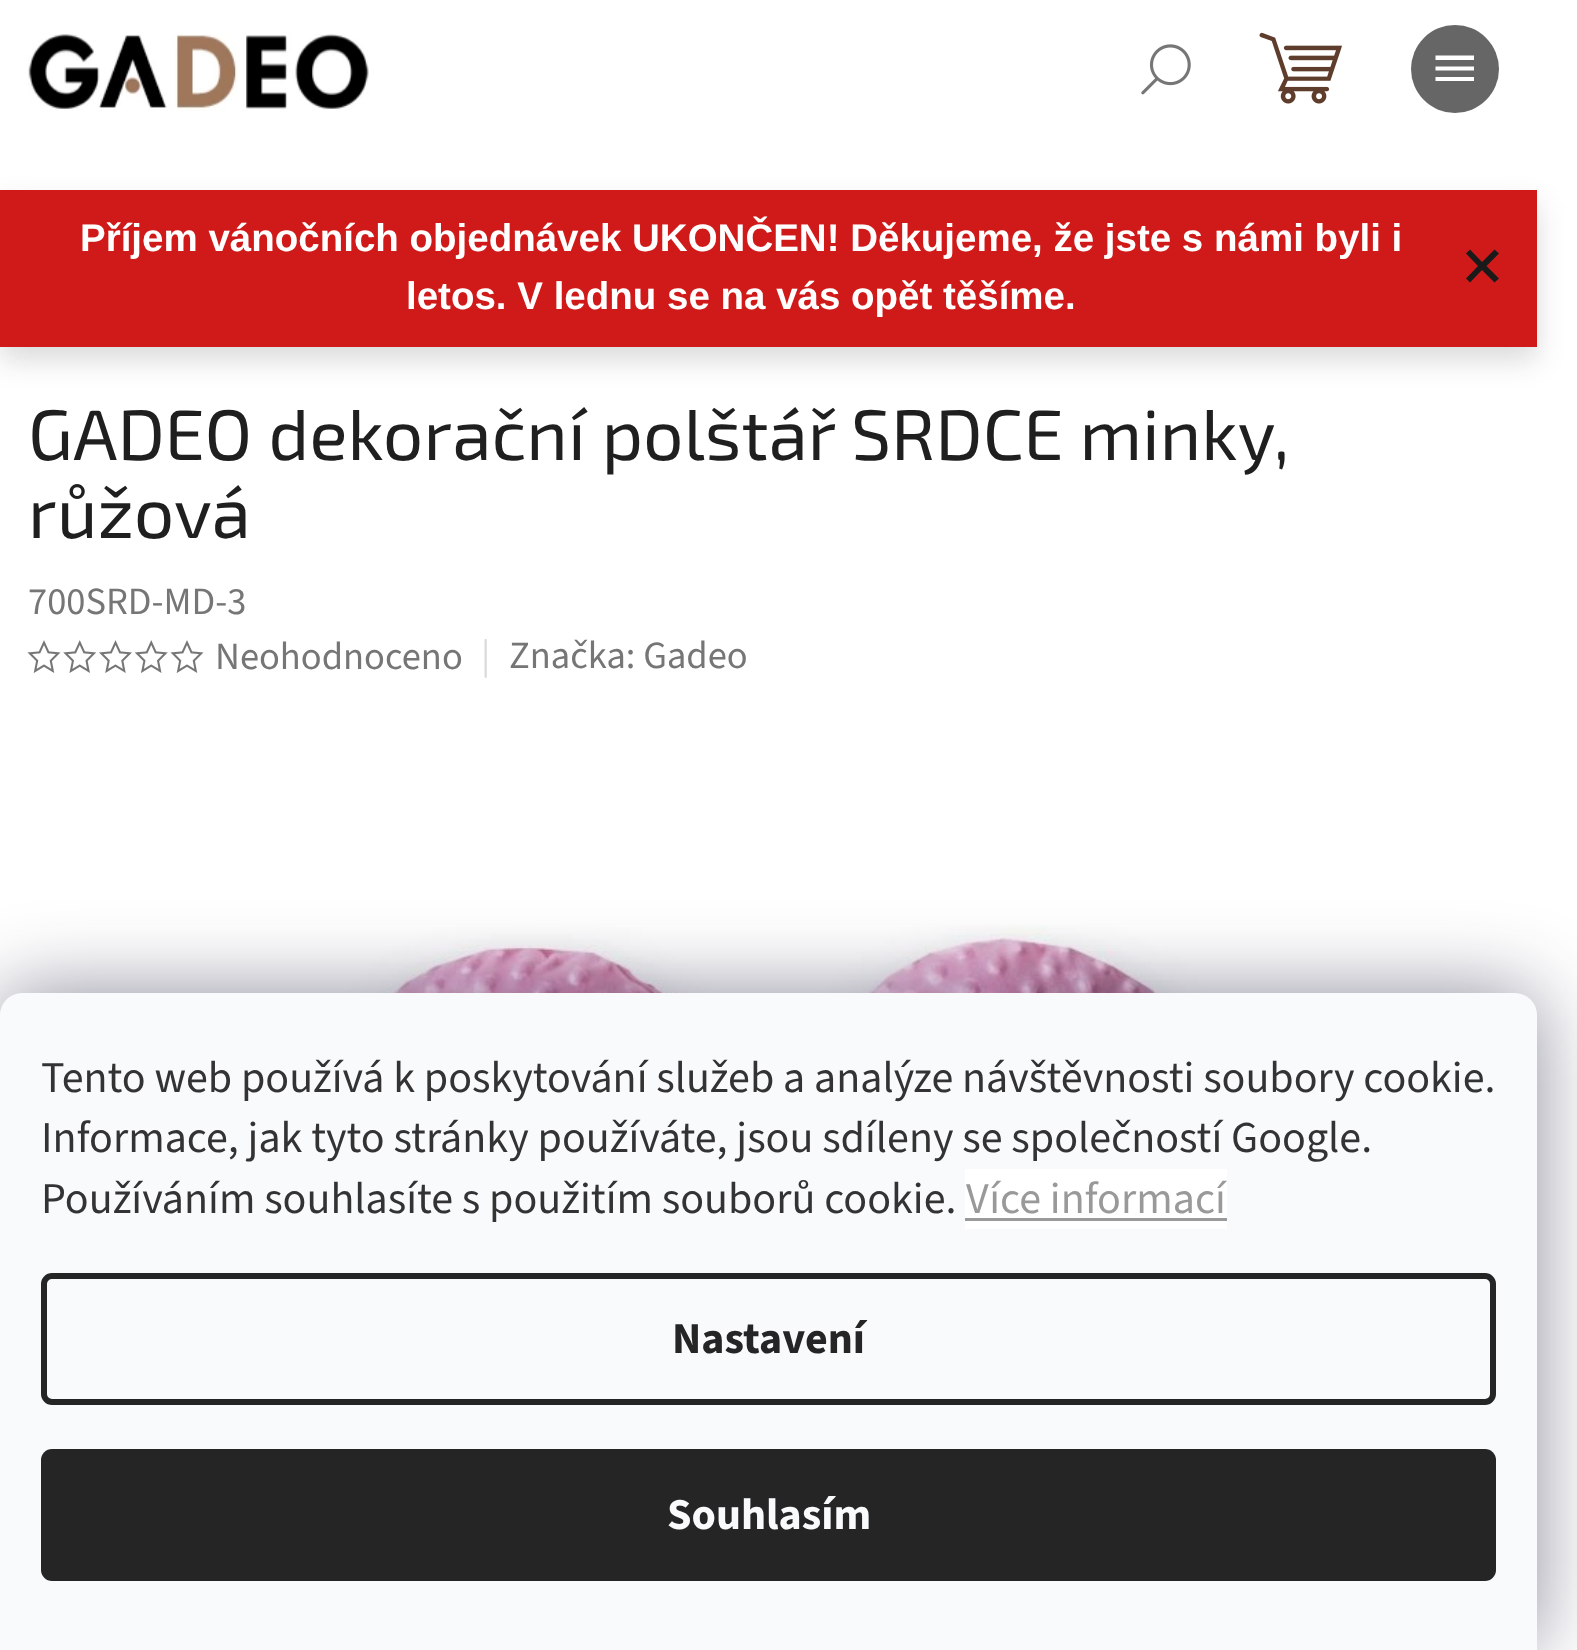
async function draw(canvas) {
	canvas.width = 1577;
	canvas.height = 1650;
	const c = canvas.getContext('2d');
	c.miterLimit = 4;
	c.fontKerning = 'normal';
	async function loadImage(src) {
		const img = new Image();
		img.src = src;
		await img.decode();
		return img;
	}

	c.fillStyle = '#fff';
	c.fillRect(0, 0, 1577, 1650);
	c.drawImage(await loadImage('img1.png'), 1141, 44, 50, 51);
	c.fillStyle = '#666';
	c.beginPath();
	c.arc(1455, 69, 44, 0, 2 * Math.PI);
	c.fill();
	c.fillStyle = '#fff';
	c.beginPath();
	c.moveTo(1435.5, 81);
	c.lineTo(1474, 81);
	c.lineTo(1474, 77);
	c.lineTo(1435.5, 77);
	c.closePath();
	c.moveTo(1435.5, 70.5);
	c.lineTo(1474, 70.5);
	c.lineTo(1474, 66.5);
	c.lineTo(1435.5, 66.5);
	c.closePath();
	c.moveTo(1435.5, 55.5);
	c.lineTo(1435.5, 60);
	c.lineTo(1474, 60);
	c.lineTo(1474, 55.5);
	c.closePath();
	c.fill();
	c.drawImage(await loadImage('img2.png'), 28, 34, 341, 77);
	c.drawImage(await loadImage('img3.png'), 1259, 32, 83, 72);
	c.fillStyle = '#1a1a1a29';
	c.filter = 'blur(14px)';
	c.beginPath();
	c.rect(0, 204, 1537, 156);
	c.fill();
	c.filter = 'none';
	c.fillStyle = '#d01a1a';
	c.fillRect(0, 190, 1537, 157);
	c.font = 'bold 38.5px Liberation Sans';
	c.fillStyle = '#fff';
	c.fillText('Příjem vánočních objednávek UKONČEN! Děkujeme, že jste s námi byli i', 80, 251);
	c.fillText('letos. V lednu se na vás opět těšíme.', 406, 309);
	c.fillStyle = '#1a1a1a';
	c.beginPath();
	c.moveTo(1470, 249.5);
	c.lineTo(1466, 253.5);
	c.lineTo(1478, 266);
	c.lineTo(1466, 278.5);
	c.lineTo(1470, 282.5);
	c.lineTo(1482, 270);
	c.lineTo(1494.5, 282.5);
	c.lineTo(1499, 278.5);
	c.lineTo(1486.5, 266);
	c.lineTo(1499, 253.5);
	c.lineTo(1494.5, 249.5);
	c.lineTo(1482, 262);
	c.closePath();
	c.fill();
	c.font = '71.5px "Exo 2"';
	c.fillStyle = '#1f1f1f';
	c.fillText('GADEO dekorační polštář SRDCE minky,', 28, 460);
	c.fillText('růžová', 28, 538);
	c.font = '38.5px "Source Sans 3"';
	c.fillStyle = '#767676';
	c.fillText('700SRD-MD-3', 28, 614);
	c.drawImage(await loadImage('img4.png'), 27, 640, 34, 33);
	c.drawImage(await loadImage('img5.png'), 63, 640, 34, 33);
	c.drawImage(await loadImage('img6.png'), 99, 640, 33, 33);
	c.drawImage(await loadImage('img7.png'), 134, 640, 34, 33);
	c.drawImage(await loadImage('img4.png'), 170, 640, 34, 33);
	c.fillText('Neohodnoceno', 215, 669);
	c.fillStyle = '#dadada';
	c.fillText('|', 481, 668);
	c.fillStyle = '#767676';
	c.fillText('Značka: Gadeo', 509, 668);
	c.drawImage(await loadImage('img8.png'), 316, 925, 911, 68);
	c.fillStyle = '#1b193980';
	c.filter = 'blur(41px)';
	c.beginPath();
	c.roundRect(0, 993, 1537, 657, 22);
	c.fill();
	c.filter = 'none';
	c.fillStyle = '#f8fafb';
	c.beginPath();
	c.roundRect(0, 993, 1537, 657, [22, 22, 0, 0]);
	c.fill();
	c.font = '44px "Source Sans 3"';
	c.fillStyle = '#333';
	for (const [text, x, y] of [
		['Tento web používá k poskytování služeb a analýze návštěvnosti soubory cookie.', 41, 1092],
		['Informace, jak tyto stránky používáte, jsou sdíleny se společností Google.', 41, 1152],
		['Používáním souhlasíte s použitím souborů cookie.', 41, 1213],
	]) {
		c.fillText(text, x, y);
	}
	c.fillStyle = '#fff';
	c.fillRect(965, 1169, 262, 60);
	c.fillStyle = '#999';
	c.fillText('Více informací', 966, 1213);
	c.fillRect(965, 1218, 262, 3);
	c.beginPath();
	c.roundRect(44, 1276, 1449, 126, 8);
	c.strokeStyle = '#252525';
	c.lineWidth = 6;
	c.stroke();
	c.font = 'bold 44px "Source Sans 3"';
	c.fillStyle = '#252525';
	c.fillText('Nastavení', 672, 1353);
	c.beginPath();
	c.roundRect(41, 1449, 1455, 132, 11);
	c.fill();
	c.fillStyle = '#f8fafb';
	c.fillText('Souhlasím', 667, 1529);
}

draw(document.querySelector('canvas'));
